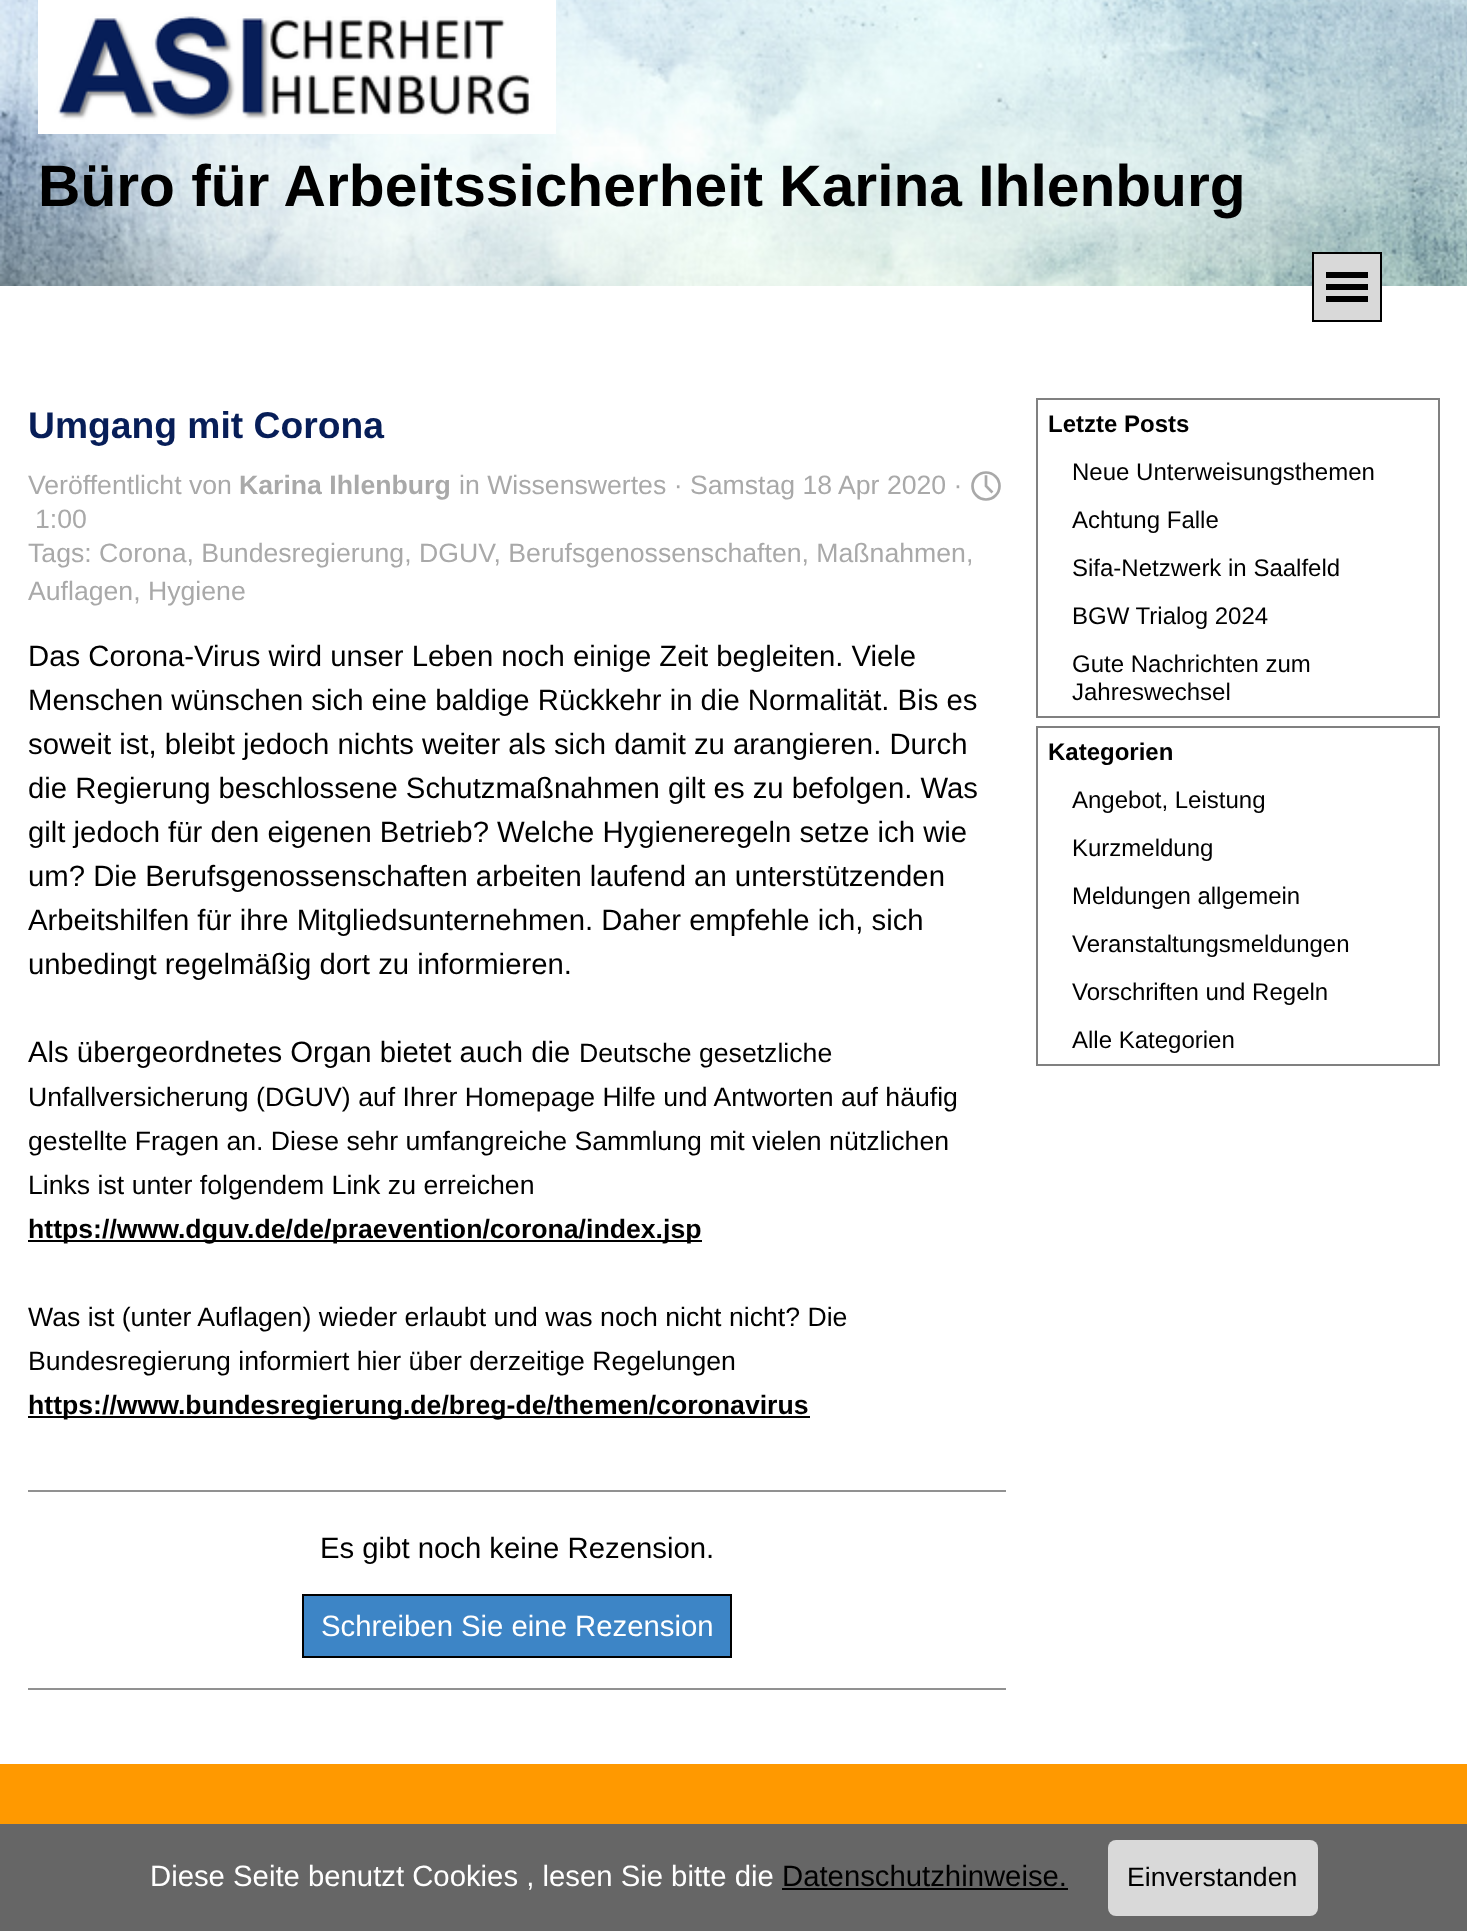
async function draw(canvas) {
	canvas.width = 1467;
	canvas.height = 1931;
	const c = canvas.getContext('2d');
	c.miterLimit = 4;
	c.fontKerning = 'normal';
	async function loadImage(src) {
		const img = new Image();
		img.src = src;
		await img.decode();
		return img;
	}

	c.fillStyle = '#fff';
	c.fillRect(0, 0, 1467, 1931);
	c.drawImage(await loadImage('img1.png'), 0, 0, 1467, 286);
	c.drawImage(await loadImage('img2.png'), 38, 0, 518, 134);
	c.font = 'bold 58.7px Liberation Sans';
	c.fillStyle = '#000';
	c.fillText('Büro für Arbeitssicherheit Karina Ihlenburg', 38, 206);
	c.fillStyle = '#d9d9d9';
	c.beginPath();
	c.rect(1313, 253, 68, 68);
	c.fill();
	c.strokeStyle = '#000';
	c.lineWidth = 2;
	c.stroke();
	for (const [x, y, w, h, color] of [
		[1326, 272, 42, 6, '#000'],
		[1326, 284, 42, 6, '#000'],
		[1326, 296, 42, 6, '#000'],
	]) {
		c.fillStyle = color;
		c.fillRect(x, y, w, h);
	}
	c.font = 'bold 37.25px Liberation Sans';
	c.fillStyle = '#071e58';
	c.fillText('Umgang mit Corona', 28, 438);
	c.font = '26.65px Liberation Sans';
	c.fillStyle = '#a9a9a9';
	c.fillText('Veröffentlicht von', 28, 494);
	c.font = 'bold 26.65px Liberation Sans';
	c.fillText('Karina Ihlenburg', 239, 494);
	c.font = '26.65px Liberation Sans';
	c.fillText('in Wissenswertes · Samstag 18 Apr 2020 ·', 459, 494);
	c.beginPath();
	c.arc(986, 486, 13.5, 0, 2 * Math.PI);
	c.strokeStyle = '#a9a9a9';
	c.lineWidth = 2.7;
	c.stroke();
	c.beginPath();
	c.moveTo(986, 476.5);
	c.lineTo(986, 486);
	c.lineTo(991.5, 491.5);
	c.lineCap = 'square';
	c.stroke();
	for (const [text, x, y] of [
		['1:00', 35, 528],
		['Tags: Corona, Bundesregierung, DGUV, Berufsgenossenschaften, Maßnahmen,', 28, 562],
		['Auflagen, Hygiene', 28, 600],
	]) {
		c.fillText(text, x, y);
	}
	c.font = '29.3px Liberation Sans';
	c.fillStyle = '#000';
	for (const [text, x, y] of [
		['Das Corona-Virus wird unser Leben noch einige Zeit begleiten. Viele', 28, 666],
		['Menschen wünschen sich eine baldige Rückkehr in die Normalität. Bis es', 28, 710],
		['soweit ist, bleibt jedoch nichts weiter als sich damit zu arangieren. Durch', 28, 754],
		['die Regierung beschlossene Schutzmaßnahmen gilt es zu befolgen. Was', 28, 798],
		['gilt jedoch für den eigenen Betrieb? Welche Hygieneregeln setze ich wie', 28, 842],
		['um? Die Berufsgenossenschaften arbeiten laufend an unterstützenden', 28, 886],
		['Arbeitshilfen für ihre Mitgliedsunternehmen. Daher empfehle ich, sich', 28, 930],
		['unbedingt regelmäßig dort zu informieren.', 28, 974],
		['Als übergeordnetes Organ bietet auch die', 28, 1062],
	]) {
		c.fillText(text, x, y);
	}
	c.font = '26.65px Liberation Sans';
	for (const [text, x, y] of [
		['Deutsche gesetzliche', 579, 1062],
		['Unfallversicherung (DGUV) auf Ihrer Homepage Hilfe und Antworten auf häufig', 28, 1106],
		['gestellte Fragen an. Diese sehr umfangreiche Sammlung mit vielen nützlichen', 28, 1150],
		['Links ist unter folgendem Link zu erreichen', 28, 1194],
	]) {
		c.fillText(text, x, y);
	}
	c.fillRect(28, 1240, 674, 2);
	c.font = 'bold 26.65px Liberation Sans';
	c.fillText('https://www.dguv.de/de/praevention/corona/index.jsp', 28, 1238);
	c.font = '26.65px Liberation Sans';
	c.fillText('Was ist (unter Auflagen) wieder erlaubt und was noch nicht nicht? Die', 28, 1326);
	c.fillText('Bundesregierung informiert hier über derzeitige Regelungen', 28, 1370);
	c.fillRect(28, 1416, 782, 2);
	c.font = 'bold 26.65px Liberation Sans';
	c.fillText('https://www.bundesregierung.de/breg-de/themen/coronavirus', 28, 1414);
	c.fillStyle = '#919191';
	c.fillRect(28, 1490, 978, 2);
	c.fillRect(28, 1688, 978, 2);
	c.font = '29.3px Liberation Sans';
	c.fillStyle = '#000';
	c.fillText('Es gibt noch keine Rezension.', 320, 1558);
	c.fillStyle = '#3d85c6';
	c.beginPath();
	c.rect(303, 1595, 428, 62);
	c.fill();
	c.strokeStyle = '#000';
	c.lineWidth = 2;
	c.stroke();
	c.fillStyle = '#fff';
	c.fillText('Schreiben Sie eine Rezension', 321, 1636);
	c.strokeStyle = '#808080';
	c.strokeRect(1037, 399, 402, 318);
	c.font = 'bold 24px Liberation Sans';
	c.fillStyle = '#000';
	c.fillText('Letzte Posts', 1048, 432);
	c.font = '24px Liberation Sans';
	for (const [text, x, y] of [
		['Neue Unterweisungsthemen', 1072, 480],
		['Achtung Falle', 1072, 528],
		['Sifa-Netzwerk in Saalfeld', 1072, 576],
		['BGW Trialog 2024', 1072, 624],
		['Gute Nachrichten zum', 1072, 672],
		['Jahreswechsel', 1072, 700],
	]) {
		c.fillText(text, x, y);
	}
	c.strokeRect(1037, 727, 402, 338);
	c.font = 'bold 24px Liberation Sans';
	c.fillText('Kategorien', 1048, 760);
	c.font = '24px Liberation Sans';
	for (const [text, x, y] of [
		['Angebot, Leistung', 1072, 808],
		['Kurzmeldung', 1072, 856],
		['Meldungen allgemein', 1072, 904],
		['Veranstaltungsmeldungen', 1072, 952],
		['Vorschriften und Regeln', 1072, 1000],
		['Alle Kategorien', 1072, 1048],
	]) {
		c.fillText(text, x, y);
	}
	c.fillStyle = '#f90';
	c.fillRect(0, 1764, 1467, 60);
	c.fillStyle = '#666';
	c.fillRect(0, 1824, 1467, 107);
	c.font = '29.3px Liberation Sans';
	c.fillStyle = '#fff';
	c.fillText('Diese Seite benutzt Cookies , lesen Sie bitte die', 150, 1886);
	c.fillStyle = '#000';
	c.fillText('Datenschutzhinweise.', 782, 1886);
	c.fillRect(782, 1888, 286, 2);
	c.fillStyle = '#d9d9d9';
	c.beginPath();
	c.roundRect(1108, 1840, 210, 76, 8);
	c.fill();
	c.font = '26.65px Liberation Sans';
	c.fillStyle = '#000';
	c.fillText('Einverstanden', 1127, 1886);
}

draw(document.querySelector('canvas'));
